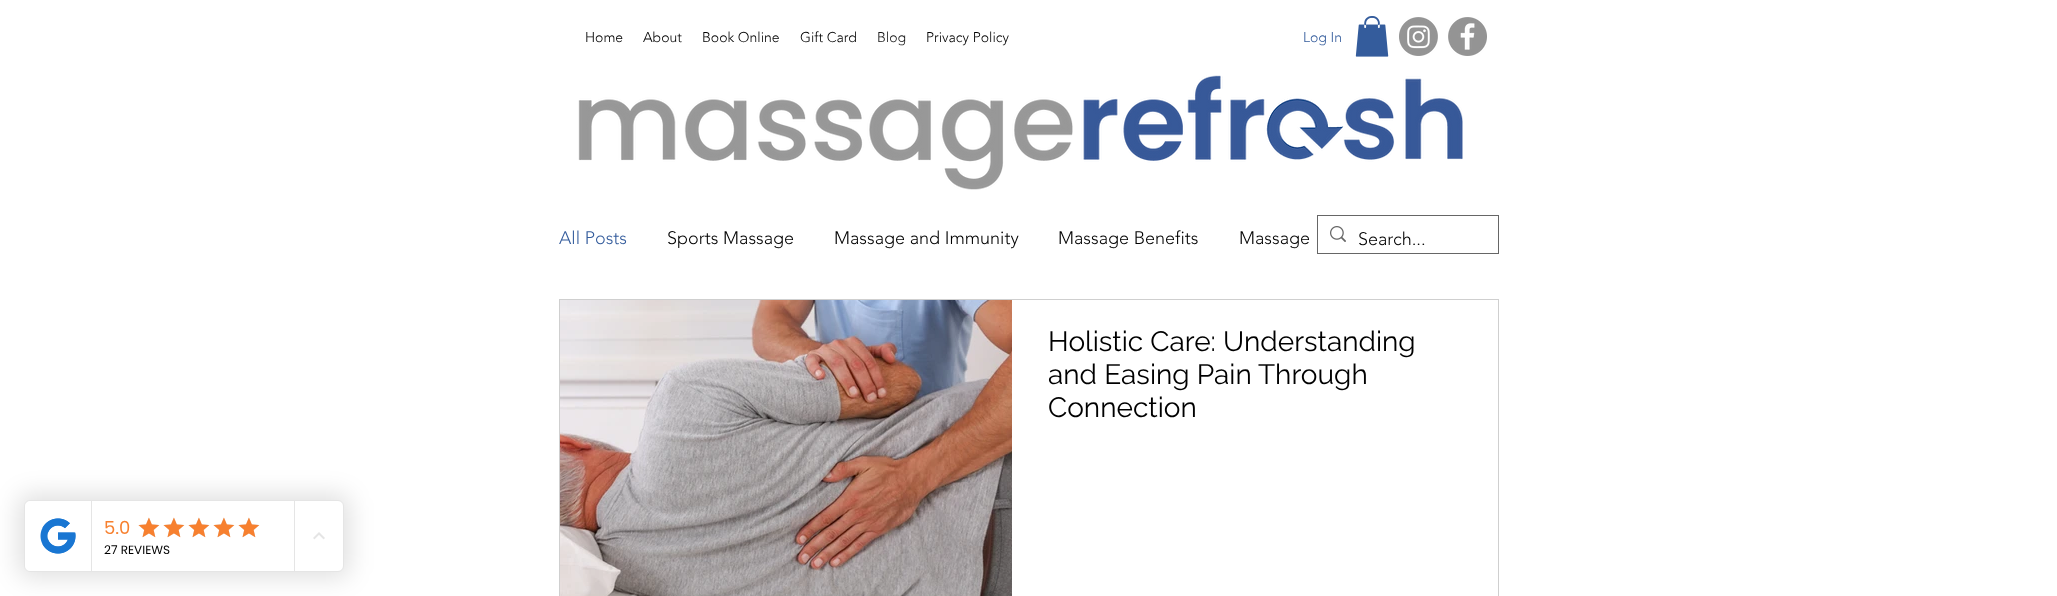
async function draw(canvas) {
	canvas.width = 2057;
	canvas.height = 596;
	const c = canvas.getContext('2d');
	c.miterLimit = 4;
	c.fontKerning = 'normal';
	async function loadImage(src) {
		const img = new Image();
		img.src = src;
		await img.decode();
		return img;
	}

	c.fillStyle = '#fff';
	c.fillRect(0, 0, 2057, 596);
	c.font = '300 14px "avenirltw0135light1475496"';
	c.fillStyle = '#000';
	for (const [text, x, y] of [
		['Home', 585, 42],
		['About', 643, 42],
		['Book Online', 702, 42],
		['Gift Card', 800, 42],
	]) {
		c.fillText(text, x, y);
	}
	c.fillStyle = '#161616';
	c.fillText('Blog', 877, 42);
	c.fillStyle = '#000';
	c.fillText('Privacy Policy', 926, 42);
	c.fillStyle = '#345c9c';
	c.fillText('Log In', 1303, 42);
	c.drawImage(await loadImage('img1.png'), 1355, 16, 34, 41);
	c.drawImage(await loadImage('img2.png'), 1399, 17, 39, 39);
	c.drawImage(await loadImage('img3.png'), 1448, 17, 39, 39);
	c.drawImage(await loadImage('img4.png'), 578, 75, 885, 115);
	c.font = '300 18px "avenirltw0135light1475496"';
	c.fillText('All Posts', 559, 244);
	c.fillStyle = '#000';
	for (const [text, x, y] of [
		['Sports Massage', 667, 244],
		['Massage and Immunity', 834, 244],
		['Massage Benefits', 1058, 244],
		['Massage', 1239, 244],
	]) {
		c.fillText(text, x, y);
	}
	c.strokeStyle = '#cfcfcf';
	c.strokeRect(559.5, 299.5, 939, 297);
	c.drawImage(await loadImage('img5.png'), 560, 300, 452, 296);
	c.font = '28px Raleway';
	for (const [text, x, y] of [
		['Holistic Care: Understanding', 1048, 351],
		['and Easing Pain Through', 1048, 384],
		['Connection', 1048, 417],
	]) {
		c.fillText(text, x, y);
	}
	c.strokeStyle = '#00000099';
	c.strokeRect(1317.5, 215.5, 181, 38);
	c.drawImage(await loadImage('img6.png'), 1330, 226, 16, 16);
	c.font = '300 18px "avenirltw0135light1475496"';
	c.fillText('Search...', 1358, 245);
	c.fillStyle = '#0000001f';
	c.filter = 'blur(12px)';
	c.beginPath();
	c.roundRect(18, 494, 332, 84, 12);
	c.fill();
	c.filter = 'none';
	c.fillStyle = '#fff';
	c.beginPath();
	c.roundRect(24.5, 500.5, 319, 71, 5.5);
	c.fill();
	c.strokeStyle = '#e5e5e5';
	c.stroke();
	c.beginPath();
	c.roundRect(25, 501, 67, 70, [6, 0, 0, 6]);
	c.fill();
	c.fillStyle = '#e5e5e5';
	c.fillRect(91, 501, 1, 70);
	c.drawImage(await loadImage('img7.png'), 40, 518, 36, 36);
	c.fillRect(294, 501, 1, 70);
	c.font = '18px Poppins';
	c.fillStyle = '#f7802f';
	c.fillText('5.0', 104, 534);
	c.drawImage(await loadImage('img9.png'), 138, 518, 21, 19);
	c.drawImage(await loadImage('img8.png'), 138, 517, 22, 21);
	c.drawImage(await loadImage('img9.png'), 163, 518, 21, 19);
	c.drawImage(await loadImage('img8.png'), 163, 517, 22, 21);
	c.drawImage(await loadImage('img9.png'), 188, 518, 21, 19);
	c.drawImage(await loadImage('img8.png'), 188, 517, 22, 21);
	c.drawImage(await loadImage('img9.png'), 213, 518, 21, 19);
	c.drawImage(await loadImage('img8.png'), 213, 517, 22, 21);
	c.drawImage(await loadImage('img9.png'), 238, 518, 21, 19);
	c.drawImage(await loadImage('img8.png'), 238, 517, 22, 21);
	c.font = '12px Poppins';
	c.fillStyle = '#000';
	c.fillText('27 REVIEWS', 104, 554);
	c.drawImage(await loadImage('img10.png'), 313, 532, 12, 8);
}

draw(document.querySelector('canvas'));
